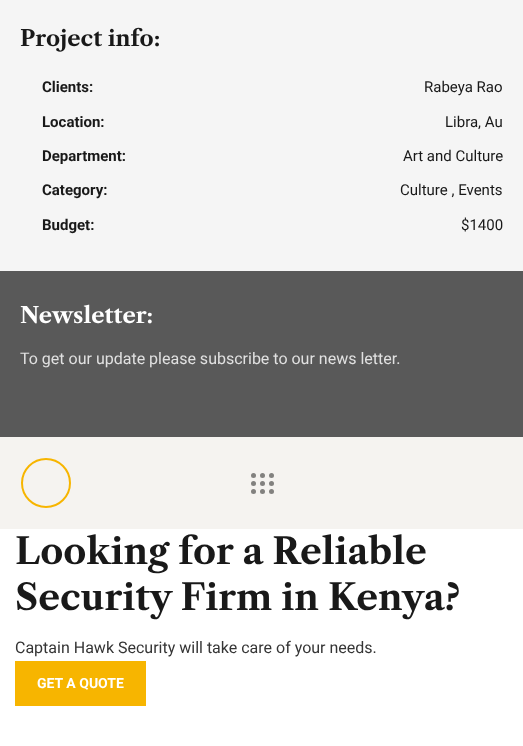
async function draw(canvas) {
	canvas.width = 523;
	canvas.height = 746;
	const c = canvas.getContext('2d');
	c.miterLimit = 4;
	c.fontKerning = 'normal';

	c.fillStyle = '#fff';
	c.fillRect(0, 0, 523, 746);
	c.fillStyle = '#f5f5f5';
	c.fillRect(0, 0, 523, 271);
	c.font = 'bold 22px Libre Caslon Text';
	c.fillStyle = '#191919';
	c.fillText('Project info:', 20, 46);
	c.font = 'bold 15px Roboto';
	c.fillText('Clients:', 42, 92);
	c.font = '15px Roboto';
	c.fillText('Rabeya Rao', 424, 92);
	c.font = 'bold 15px Roboto';
	c.fillText('Location:', 42, 127);
	c.font = '15px Roboto';
	c.fillText('Libra, Au', 445, 127);
	c.font = 'bold 15px Roboto';
	c.fillText('Department:', 42, 161);
	c.font = '15px Roboto';
	c.fillText('Art and Culture', 403, 161);
	c.font = 'bold 15px Roboto';
	c.fillText('Category:', 42, 195);
	c.font = '15px Roboto';
	c.fillText('Culture , Events', 400, 195);
	c.font = 'bold 15px Roboto';
	c.fillText('Budget:', 42, 230);
	c.font = '15px Roboto';
	c.fillText('$1400', 461, 230);
	c.fillStyle = '#595959';
	c.fillRect(0, 271, 523, 166);
	c.font = 'bold 22px Libre Caslon Text';
	c.fillStyle = '#fff';
	c.fillText('Newsletter:', 20, 323);
	c.font = '16px Roboto';
	c.fillStyle = '#e1e1e1';
	c.fillText('To get our update please subscribe to our news letter.', 20, 364);
	c.fillStyle = '#f5f3f0';
	c.fillRect(0, 437, 523, 92);
	c.beginPath();
	c.arc(46, 483, 24, 0, 2 * Math.PI);
	c.strokeStyle = '#f7b500';
	c.lineWidth = 2;
	c.stroke();
	c.fillStyle = '#82817f';
	c.beginPath();
	c.arc(253.5, 475.5, 2.5, 0, 2 * Math.PI);
	c.fill();
	c.beginPath();
	c.arc(262.5, 475.5, 2.5, 0, 2 * Math.PI);
	c.fill();
	c.beginPath();
	c.arc(271.5, 475.5, 2.5, 0, 2 * Math.PI);
	c.fill();
	c.beginPath();
	c.arc(253.5, 483.5, 2.5, 0, 2 * Math.PI);
	c.fill();
	c.beginPath();
	c.arc(262.5, 483.5, 2.5, 0, 2 * Math.PI);
	c.fill();
	c.beginPath();
	c.arc(271.5, 483.5, 2.5, 0, 2 * Math.PI);
	c.fill();
	c.beginPath();
	c.arc(253.5, 491.5, 2.5, 0, 2 * Math.PI);
	c.fill();
	c.beginPath();
	c.arc(262.5, 491.5, 2.5, 0, 2 * Math.PI);
	c.fill();
	c.beginPath();
	c.arc(271.5, 491.5, 2.5, 0, 2 * Math.PI);
	c.fill();
	c.font = 'bold 36px Libre Caslon Text';
	c.fillStyle = '#191919';
	c.fillText('Looking for a Reliable', 15, 564);
	c.fillText('Security Firm in Kenya?', 15, 610);
	c.font = '16px Roboto';
	c.fillStyle = '#353535';
	c.fillText('Captain Hawk Security will take care of your needs.', 15, 653);
	c.fillStyle = '#f7b500';
	c.fillRect(15, 661, 131, 45);
	c.font = 'bold 14px Roboto';
	c.fillStyle = '#fff';
	c.fillText('GET A QUOTE', 37, 688);
}

draw(document.querySelector('canvas'));
